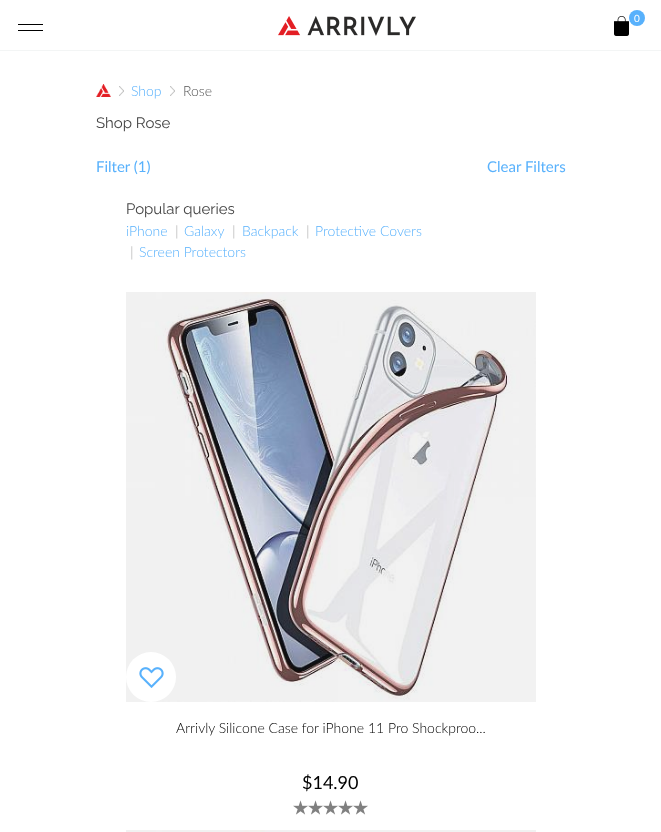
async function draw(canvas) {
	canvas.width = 661;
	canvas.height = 832;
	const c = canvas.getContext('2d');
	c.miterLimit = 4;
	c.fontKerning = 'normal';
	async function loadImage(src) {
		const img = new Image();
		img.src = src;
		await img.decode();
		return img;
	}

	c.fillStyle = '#fff';
	c.fillRect(0, 0, 661, 832);
	for (const [x, y, w, h, color] of [
		[0, 50, 661, 1, '#f3f5f5'],
		[18, 24, 25, 1, '#000'],
		[18, 30, 25, 1, '#000'],
	]) {
		c.fillStyle = color;
		c.fillRect(x, y, w, h);
	}
	c.drawImage(await loadImage('img1.png'), 278, 16, 138, 20);
	c.drawImage(await loadImage('img2.png'), 614, 16, 15, 20);
	c.fillStyle = '#58b1fc';
	c.beginPath();
	c.arc(637, 18, 8, 0, 2 * Math.PI);
	c.fill();
	c.font = '10px Lato';
	c.fillStyle = '#fff';
	c.fillText('0', 634, 22);
	c.drawImage(await loadImage('img3.png'), 96, 84, 15, 13);
	c.drawImage(await loadImage('img4.png'), 119, 86, 5, 10);
	c.font = '300 14px Lato';
	c.fillStyle = '#58b1fc';
	c.fillText('Shop', 131, 96);
	c.drawImage(await loadImage('img4.png'), 170, 86, 5, 10);
	c.fillStyle = '#555';
	c.fillText('Rose', 183, 96);
	c.font = '15px Raleway';
	c.fillStyle = '#444';
	c.fillText('Shop Rose', 96, 128);
	c.font = '15px Lato';
	c.fillStyle = '#58b1fc';
	c.fillText('Filter (1)', 96, 172);
	c.fillText('Clear Filters', 487, 172);
	c.font = '15px Raleway';
	c.fillStyle = '#444';
	c.fillText('Popular queries', 126, 214);
	c.font = '300 14px Lato';
	c.fillStyle = '#58b1fc';
	c.fillText('iPhone', 126, 236);
	c.font = '14px Lato';
	c.fillStyle = '#ccc';
	c.fillText('|', 175, 236);
	c.font = '300 14px Lato';
	c.fillStyle = '#58b1fc';
	c.fillText('Galaxy', 184, 236);
	c.font = '14px Lato';
	c.fillStyle = '#ccc';
	c.fillText('|', 232, 236);
	c.font = '300 14px Lato';
	c.fillStyle = '#58b1fc';
	c.fillText('Backpack', 242, 236);
	c.font = '14px Lato';
	c.fillStyle = '#ccc';
	c.fillText('|', 306, 236);
	c.font = '300 14px Lato';
	c.fillStyle = '#58b1fc';
	c.fillText('Protective Covers', 315, 236);
	c.font = '14px Lato';
	c.fillStyle = '#ccc';
	c.fillText('|', 130, 257);
	c.font = '300 14px Lato';
	c.fillStyle = '#58b1fc';
	c.fillText('Screen Protectors', 139, 257);
	c.drawImage(await loadImage('img5.png'), 126, 292, 410, 410);
	c.fillStyle = '#fff';
	c.beginPath();
	c.arc(151, 677, 25, 0, 2 * Math.PI);
	c.fill();
	c.drawImage(await loadImage('img6.png'), 139, 667, 25, 21);
	c.fillStyle = '#000';
	c.fillText('Arrivly Silicone Case for iPhone 11 Pro Shockproo...', 176, 733);
	c.font = '18px Lato';
	c.fillText('$14.90', 302, 789);
	c.drawImage(await loadImage('img7.png'), 293, 800, 15, 15);
	c.drawImage(await loadImage('img7.png'), 308, 800, 15, 15);
	c.drawImage(await loadImage('img7.png'), 323, 800, 15, 15);
	c.drawImage(await loadImage('img7.png'), 338, 800, 15, 15);
	c.drawImage(await loadImage('img7.png'), 353, 800, 15, 15);
	c.drawImage(await loadImage('img8.png'), 126, 830, 410, 2);
}

draw(document.querySelector('canvas'));
